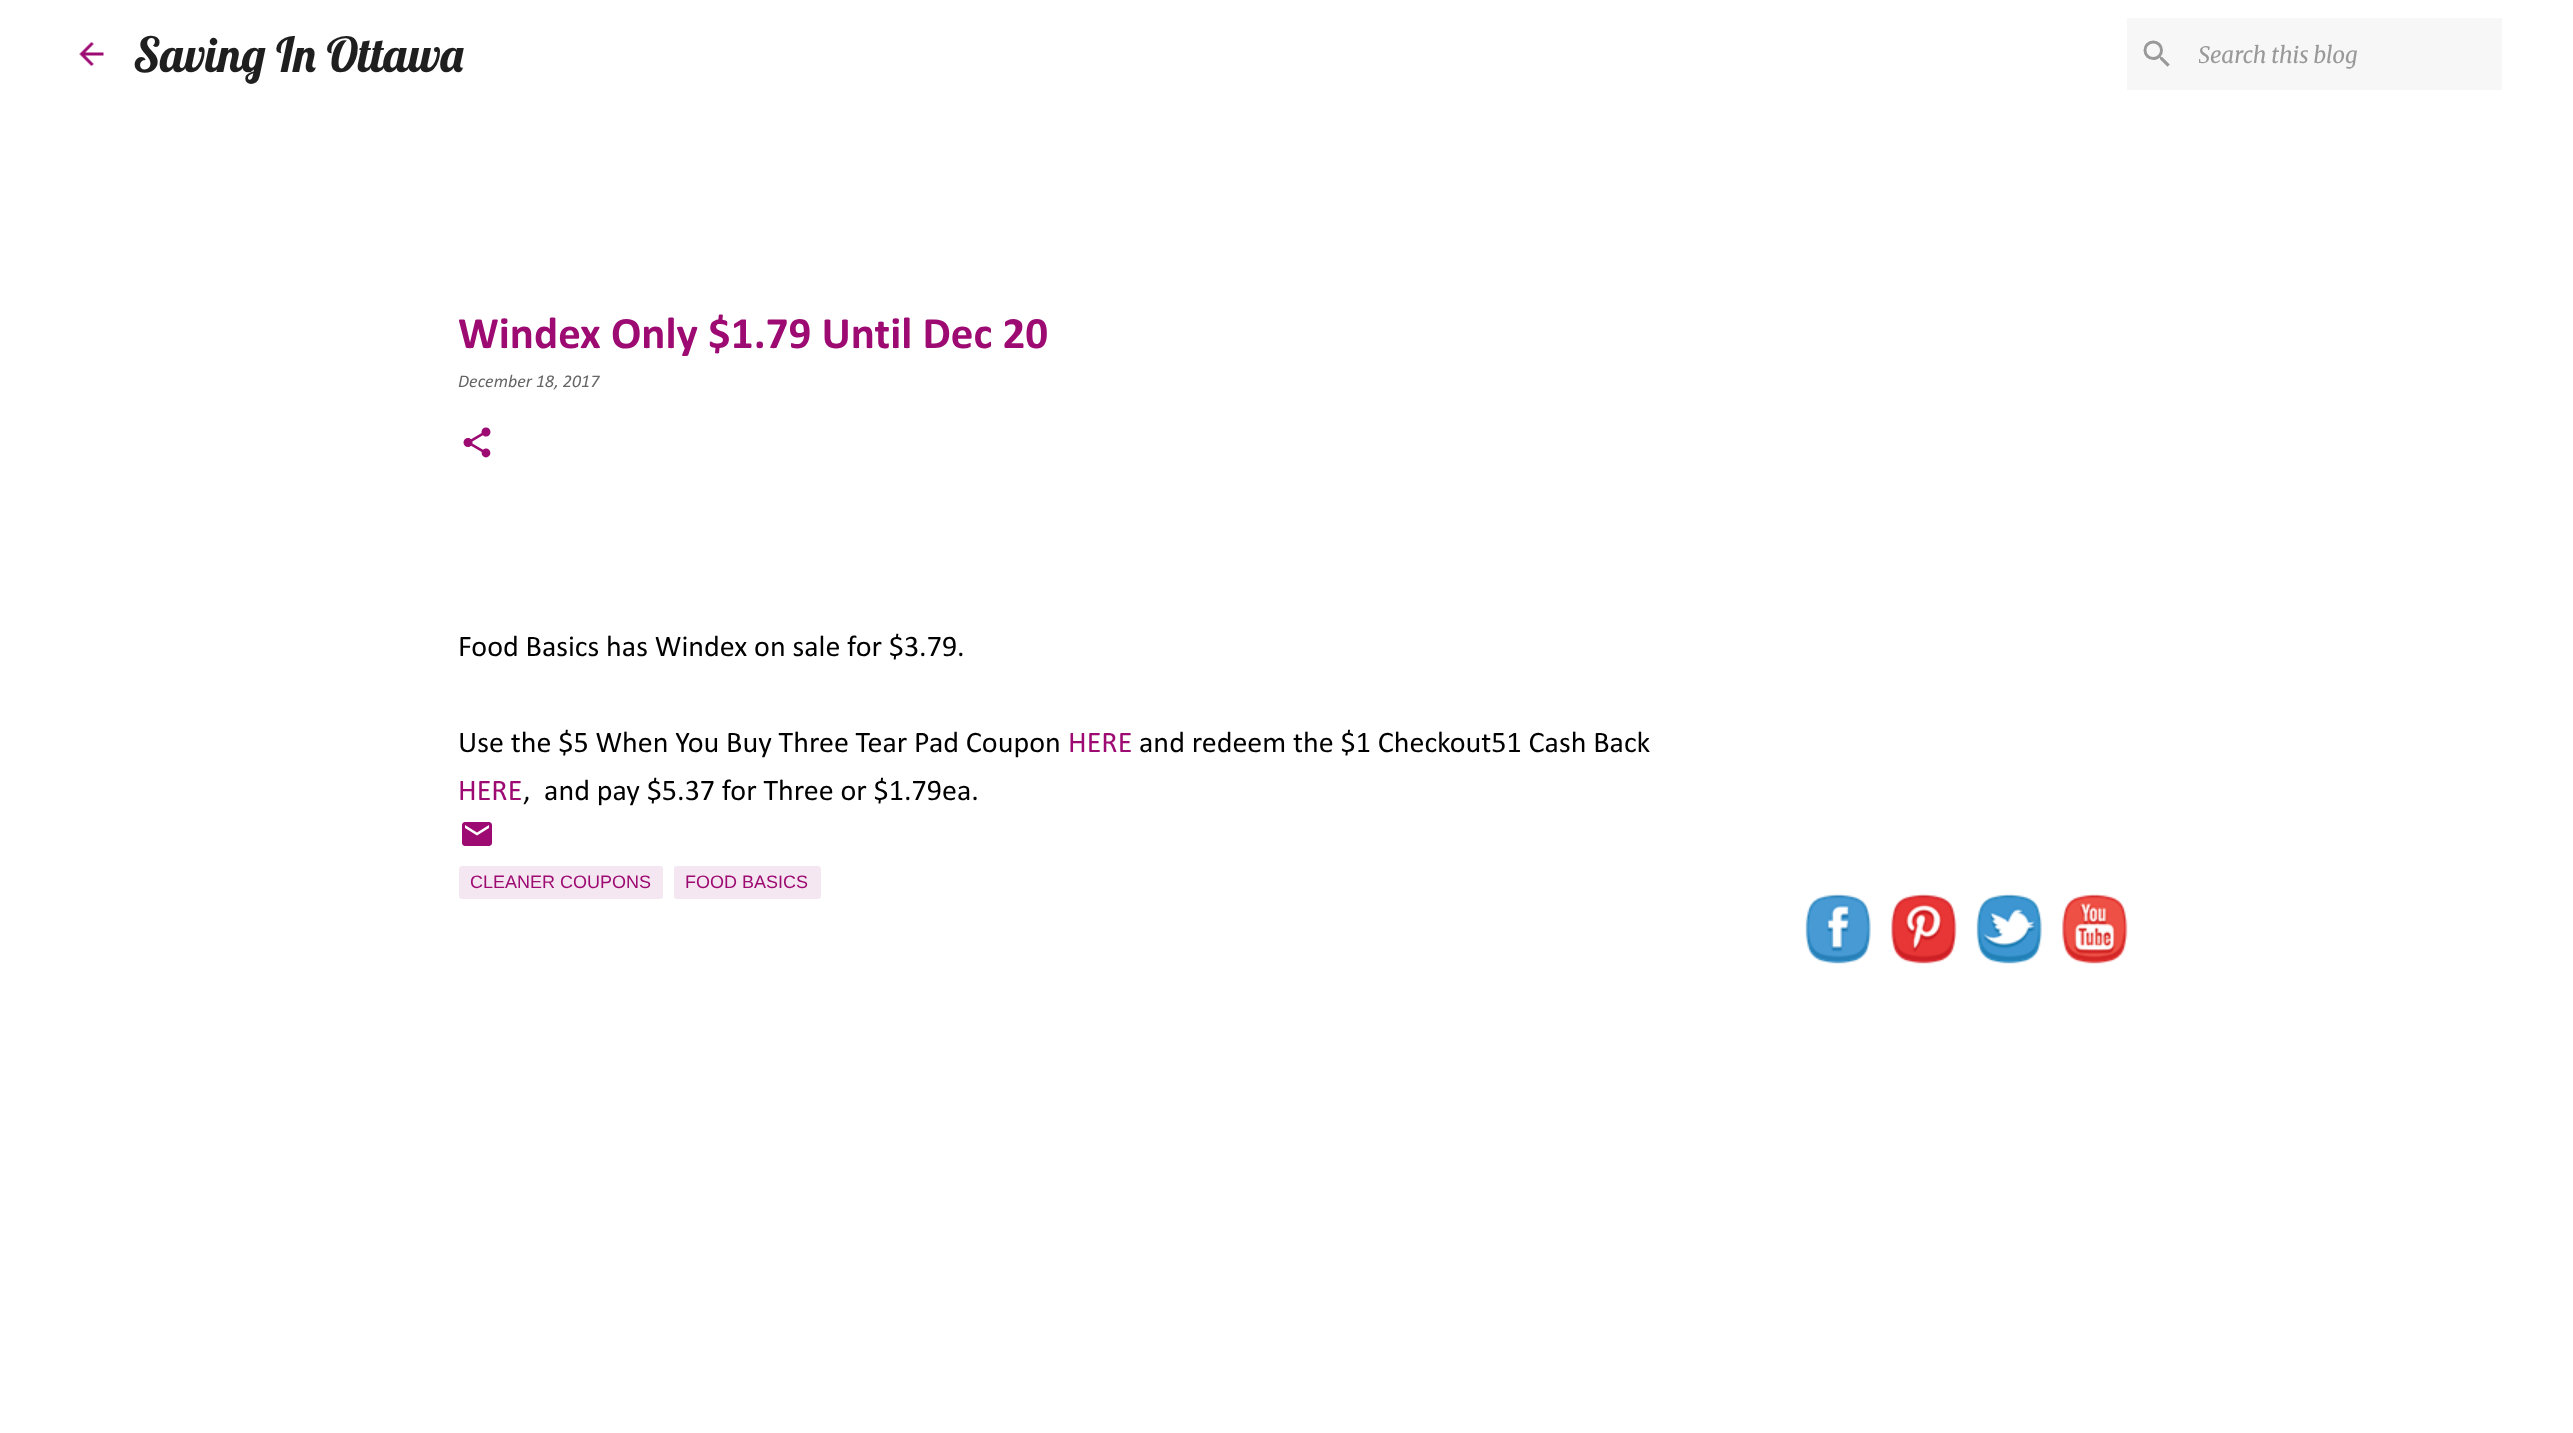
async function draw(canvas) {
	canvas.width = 2573;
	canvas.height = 1433;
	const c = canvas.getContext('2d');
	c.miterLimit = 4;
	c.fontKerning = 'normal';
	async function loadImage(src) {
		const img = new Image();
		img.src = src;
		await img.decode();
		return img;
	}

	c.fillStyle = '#fff';
	c.fillRect(0, 0, 2573, 1433);
	c.drawImage(await loadImage('img1.png'), 79, 42, 25, 24);
	c.font = '48px Lobster';
	c.fillStyle = '#1f1f1f';
	c.fillText('Saving In Ottawa', 133, 72);
	c.fillStyle = '#f7f7f7';
	c.fillRect(2127, 18, 375, 72);
	c.drawImage(await loadImage('img2.png'), 2143, 40, 27, 27);
	c.save();
	c.beginPath();
	c.rect(2199, 41, 291, 28);
	c.clip();
	c.font = 'italic 300 22.5px Merriweather';
	c.fillStyle = '#999';
	c.fillText('Search this blog', 2198, 63);
	c.restore();
	c.font = 'bold 45px Calibri';
	c.fillStyle = '#9c0a72';
	c.fillText('Windex Only $1.79 Until Dec 20', 458, 348);
	c.font = 'italic 18px Calibri';
	c.fillStyle = '#666';
	c.fillText('December 18, 2017', 458, 387);
	c.drawImage(await loadImage('img3.png'), 463, 427, 28, 31);
	c.font = '30px Calibri';
	c.fillStyle = '#000';
	c.fillText('Food Basics has Windex on sale for $3.79.', 458, 656);
	c.fillText('Use the $5 When You Buy Three Tear Pad Coupon', 458, 752);
	c.fillStyle = '#9c0a72';
	c.fillText('HERE', 1068, 752);
	c.fillStyle = '#000';
	c.fillText('and redeem the $1 Checkout51 Cash Back', 1139, 752);
	c.fillStyle = '#9c0a72';
	c.fillText('HERE', 458, 800);
	c.fillStyle = '#000';
	c.fillText(',  and pay $5.37 for Three or $1.79ea.', 523, 800);
	c.drawImage(await loadImage('img4.png'), 462, 822, 30, 24);
	c.fillStyle = '#f5e7f1';
	c.beginPath();
	c.roundRect(459, 866, 204, 33, 3);
	c.fill();
	c.font = '18px Liberation Sans';
	c.fillStyle = '#9c0a72';
	c.fillText('CLEANER COUPONS', 470, 888);
	c.fillStyle = '#f5e7f1';
	c.beginPath();
	c.roundRect(674, 866, 147, 33, 3);
	c.fill();
	c.fillStyle = '#9c0a72';
	c.fillText('FOOD BASICS', 685, 888);
	c.drawImage(await loadImage('img5.png'), 1805, 894, 66, 70);
	c.drawImage(await loadImage('img6.png'), 1891, 894, 66, 70);
	c.drawImage(await loadImage('img7.png'), 1976, 894, 66, 70);
	c.drawImage(await loadImage('img8.png'), 2062, 894, 66, 70);
}

draw(document.querySelector('canvas'));
